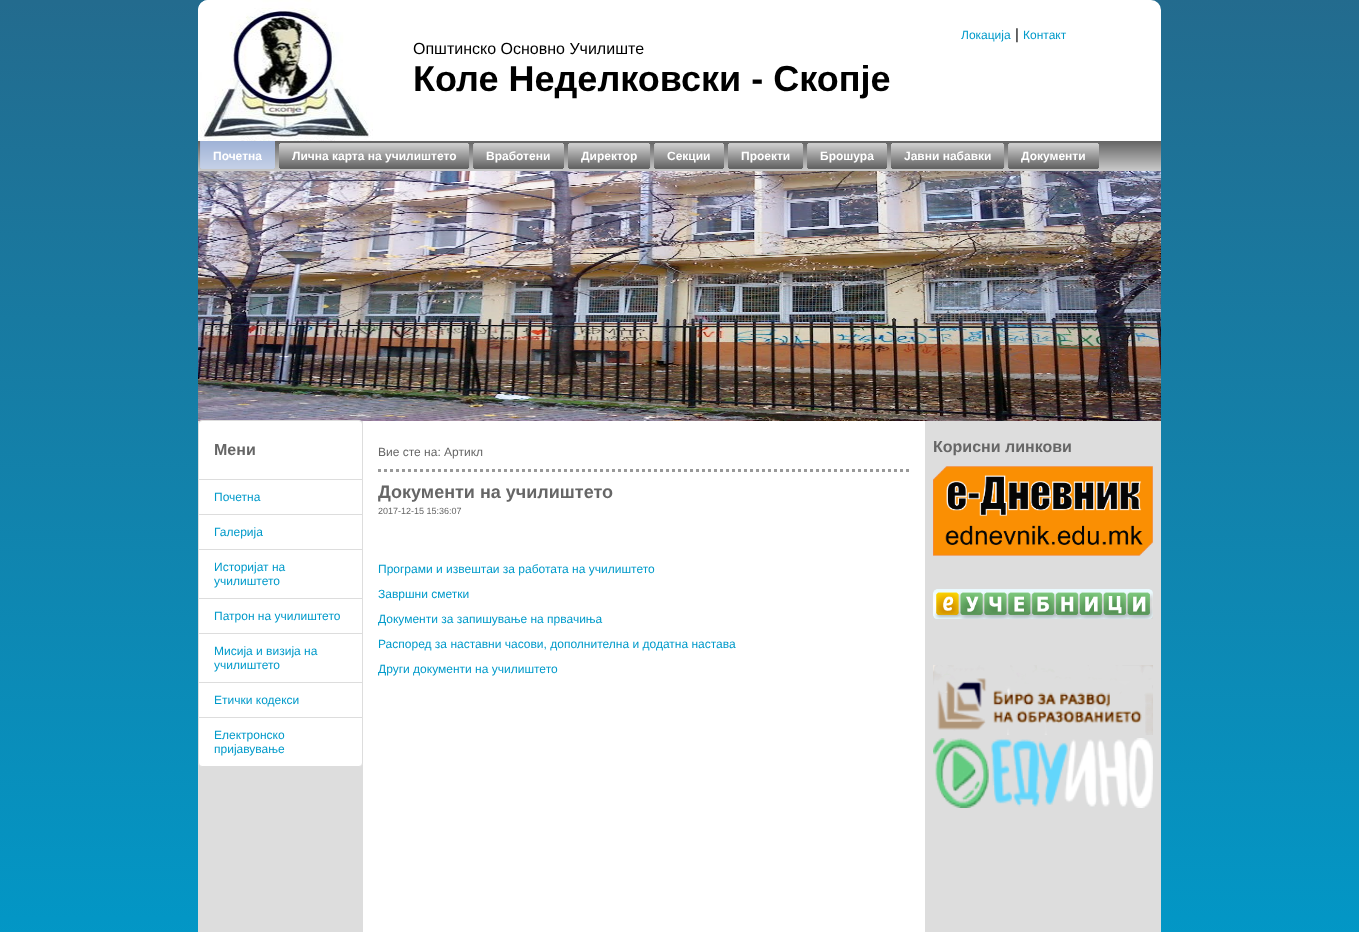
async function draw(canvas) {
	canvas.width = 1359;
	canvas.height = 932;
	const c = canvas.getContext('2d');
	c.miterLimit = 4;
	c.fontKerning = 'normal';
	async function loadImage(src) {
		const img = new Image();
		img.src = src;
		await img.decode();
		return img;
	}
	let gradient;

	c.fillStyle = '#fff';
	c.fillRect(0, 0, 1359, 932);
	gradient = c.createLinearGradient(679, 0, 680, 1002);
	gradient.addColorStop(0, '#236b8e');
	gradient.addColorStop(1, '#009aca');
	c.fillStyle = gradient;
	c.fillRect(0, 0, 1359, 932);
	c.fillStyle = '#fff';
	c.beginPath();
	c.roundRect(198, 0, 963, 141, [10, 10, 0, 0]);
	c.fill();
	c.drawImage(await loadImage('img1.png'), 198, 0, 175, 141);
	c.font = '12px Liberation Sans';
	c.fillStyle = '#009aca';
	c.fillText('Локација', 961, 39);
	c.font = '15px Liberation Sans';
	c.fillStyle = '#000';
	c.fillText('|', 1015, 39);
	c.font = '12px Liberation Sans';
	c.fillStyle = '#009aca';
	c.fillText('Контакт', 1023, 39);
	c.font = '16px Liberation Sans';
	c.fillStyle = '#000';
	c.fillText('Општинско Основно Училиште', 413, 54);
	c.font = 'bold 36px Liberation Sans';
	c.fillText('Коле Неделковски - Скопје', 413, 91);
	c.drawImage(await loadImage('img2.png'), 198, 141, 963, 30);
	c.drawImage(await loadImage('img3.png'), 200, 141, 74, 28);
	c.drawImage(await loadImage('img4.png'), 274, 141, 3, 28);
	c.font = 'bold 12px Liberation Sans';
	c.fillStyle = '#fff';
	c.fillText('Почетна', 213, 160);
	c.drawImage(await loadImage('img5.png'), 279, 143, 189, 26);
	c.drawImage(await loadImage('img6.png'), 468, 143, 3, 26);
	c.fillText('Лична карта на училиштето', 292, 160);
	c.drawImage(await loadImage('img7.png'), 473, 143, 90, 26);
	c.drawImage(await loadImage('img8.png'), 563, 143, 3, 26);
	c.fillText('Вработени', 486, 160);
	c.drawImage(await loadImage('img9.png'), 568, 143, 81, 26);
	c.drawImage(await loadImage('img6.png'), 649, 143, 3, 26);
	c.fillText('Директор', 581, 160);
	c.drawImage(await loadImage('img10.png'), 654, 143, 69, 26);
	c.drawImage(await loadImage('img8.png'), 723, 143, 3, 26);
	c.fillText('Секции', 667, 160);
	c.drawImage(await loadImage('img11.png'), 728, 143, 74, 26);
	c.drawImage(await loadImage('img6.png'), 802, 143, 3, 26);
	c.fillText('Проекти', 741, 160);
	c.drawImage(await loadImage('img12.png'), 807, 143, 79, 26);
	c.drawImage(await loadImage('img8.png'), 886, 143, 3, 26);
	c.fillText('Брошура', 820, 160);
	c.drawImage(await loadImage('img13.png'), 891, 143, 112, 26);
	c.drawImage(await loadImage('img6.png'), 1003, 143, 3, 26);
	c.fillText('Јавни набавки', 904, 160);
	c.drawImage(await loadImage('img7.png'), 1008, 143, 90, 26);
	c.drawImage(await loadImage('img8.png'), 1098, 143, 3, 26);
	c.fillText('Документи', 1021, 160);
	c.drawImage(await loadImage('img14.png'), 198, 171, 963, 250);
	c.fillStyle = '#ddd';
	c.fillRect(198, 421, 165, 511);
	c.fillStyle = '#fff';
	c.beginPath();
	c.roundRect(198.5, 420.5, 164, 59, [3.5, 3.5, 0, 0]);
	c.fill();
	c.strokeStyle = '#ddd';
	c.stroke();
	c.font = 'bold 16px Liberation Sans';
	c.fillStyle = '#666';
	c.fillText('Мени', 214, 455);
	c.fillStyle = '#fff';
	c.fillRect(199, 480, 163, 34);
	c.font = '12px Liberation Sans';
	c.fillStyle = '#009aca';
	c.fillText('Почетна', 214, 501);
	c.fillStyle = '#fff';
	c.fillRect(199, 515, 163, 34);
	c.fillStyle = '#009aca';
	c.fillText('Галерија', 214, 536);
	c.fillStyle = '#fff';
	c.fillRect(199, 550, 163, 48);
	c.fillStyle = '#009aca';
	c.fillText('Историјат на', 214, 571);
	c.fillText('училиштето', 214, 585);
	c.fillStyle = '#fff';
	c.fillRect(199, 599, 163, 34);
	c.fillStyle = '#009aca';
	c.fillText('Патрон на училиштето', 214, 620);
	c.fillStyle = '#fff';
	c.fillRect(199, 634, 163, 48);
	c.fillStyle = '#009aca';
	c.fillText('Мисија и визија на', 214, 655);
	c.fillText('училиштето', 214, 669);
	c.fillStyle = '#fff';
	c.fillRect(199, 683, 163, 34);
	c.fillStyle = '#009aca';
	c.fillText('Етички кодекси', 214, 704);
	c.fillStyle = '#fff';
	c.beginPath();
	c.roundRect(198.5, 717.5, 164, 49, [0, 0, 3.5, 3.5]);
	c.fill();
	c.stroke();
	c.fillStyle = '#009aca';
	c.fillText('Електронско', 214, 739);
	c.fillText('пријавување', 214, 753);
	c.fillStyle = '#fff';
	c.fillRect(363, 421, 562, 511);
	c.beginPath();
	c.moveTo(378, 470.5);
	c.lineTo(910, 470.5);
	c.strokeStyle = '#999';
	c.lineWidth = 3;
	c.setLineDash([3, 3]);
	c.stroke();
	c.fillStyle = '#666';
	c.fillText('Вие сте на: Артикл', 378, 456);
	c.font = 'bold 18px Liberation Sans';
	c.fillText('Документи на училиштето', 378, 498);
	c.font = '9px Liberation Sans';
	c.fillText('2017-12-15 15:36:07', 378, 514);
	c.font = '12px Liberation Sans';
	c.fillStyle = '#009aca';
	for (const [text, x, y] of [
		['Програми и извештаи за работата на училиштето', 378, 573],
		['Завршни сметки', 378, 598],
		['Документи за запишување на првачиња', 378, 623],
		['Распоред за наставни часови, дополнителна и додатна настава', 378, 648],
		['Други документи на училиштето', 378, 673],
	]) {
		c.fillText(text, x, y);
	}
	c.fillStyle = '#ddd';
	c.fillRect(925, 421, 236, 511);
	c.font = 'bold 16px Liberation Sans';
	c.fillStyle = '#666';
	c.fillText('Корисни линкови', 933, 452);
	c.drawImage(await loadImage('img15.png'), 933, 466, 220, 90);
	c.drawImage(await loadImage('img16.png'), 933, 589, 220, 30);
	c.drawImage(await loadImage('img17.png'), 933, 665, 220, 70);
	c.drawImage(await loadImage('img18.png'), 933, 738, 220, 70);
}

draw(document.querySelector('canvas'));
